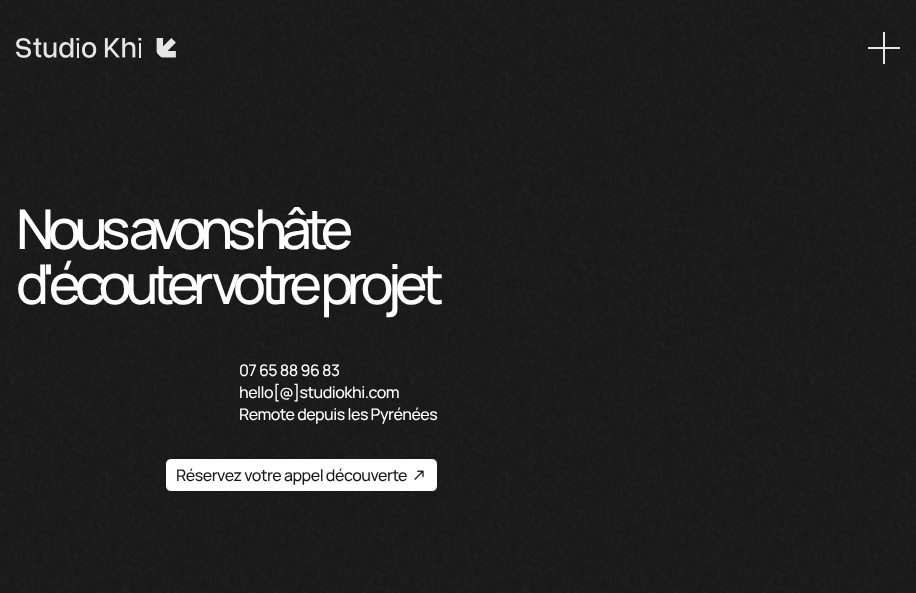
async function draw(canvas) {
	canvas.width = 916;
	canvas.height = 593;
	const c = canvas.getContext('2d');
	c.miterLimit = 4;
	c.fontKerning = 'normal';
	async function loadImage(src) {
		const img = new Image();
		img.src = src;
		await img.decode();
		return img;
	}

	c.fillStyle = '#191919';
	c.fillRect(0, 0, 916, 593);
	c.drawImage(await loadImage('img2.png'), 0, 0, 916, 593);
	c.drawImage(await loadImage('img1.png'), 16, 38, 160, 20);
	c.fillStyle = '#e6e6e6';
	c.fillRect(868, 47, 32, 2);
	c.fillRect(883, 32, 2, 32);
	c.letterSpacing = '-6.4px';
	c.font = '500 55px Manrope';
	c.fillStyle = '#fff';
	c.fillText('Nous avons hâte', 16, 249);
	c.fillText('d\'écouter votre projet', 16, 304);
	c.letterSpacing = '-0.5px';
	c.font = '500 16px Manrope';
	for (const [text, x, y] of [
		['07 65 88 96 83', 239, 376],
		['hello[@]studiokhi.com', 239, 398],
		['Remote depuis les Pyrénées', 239, 420],
	]) {
		c.fillText(text, x, y);
	}
	c.beginPath();
	c.roundRect(165.5, 458.5, 272, 33, 5.5);
	c.fill();
	c.strokeStyle = '#191919';
	c.stroke();
	c.fillStyle = '#191919';
	c.fillText('Réservez votre appel découverte', 176, 481);
	c.drawImage(await loadImage('img3.png'), 414, 470, 10, 10);
}

draw(document.querySelector('canvas'));
